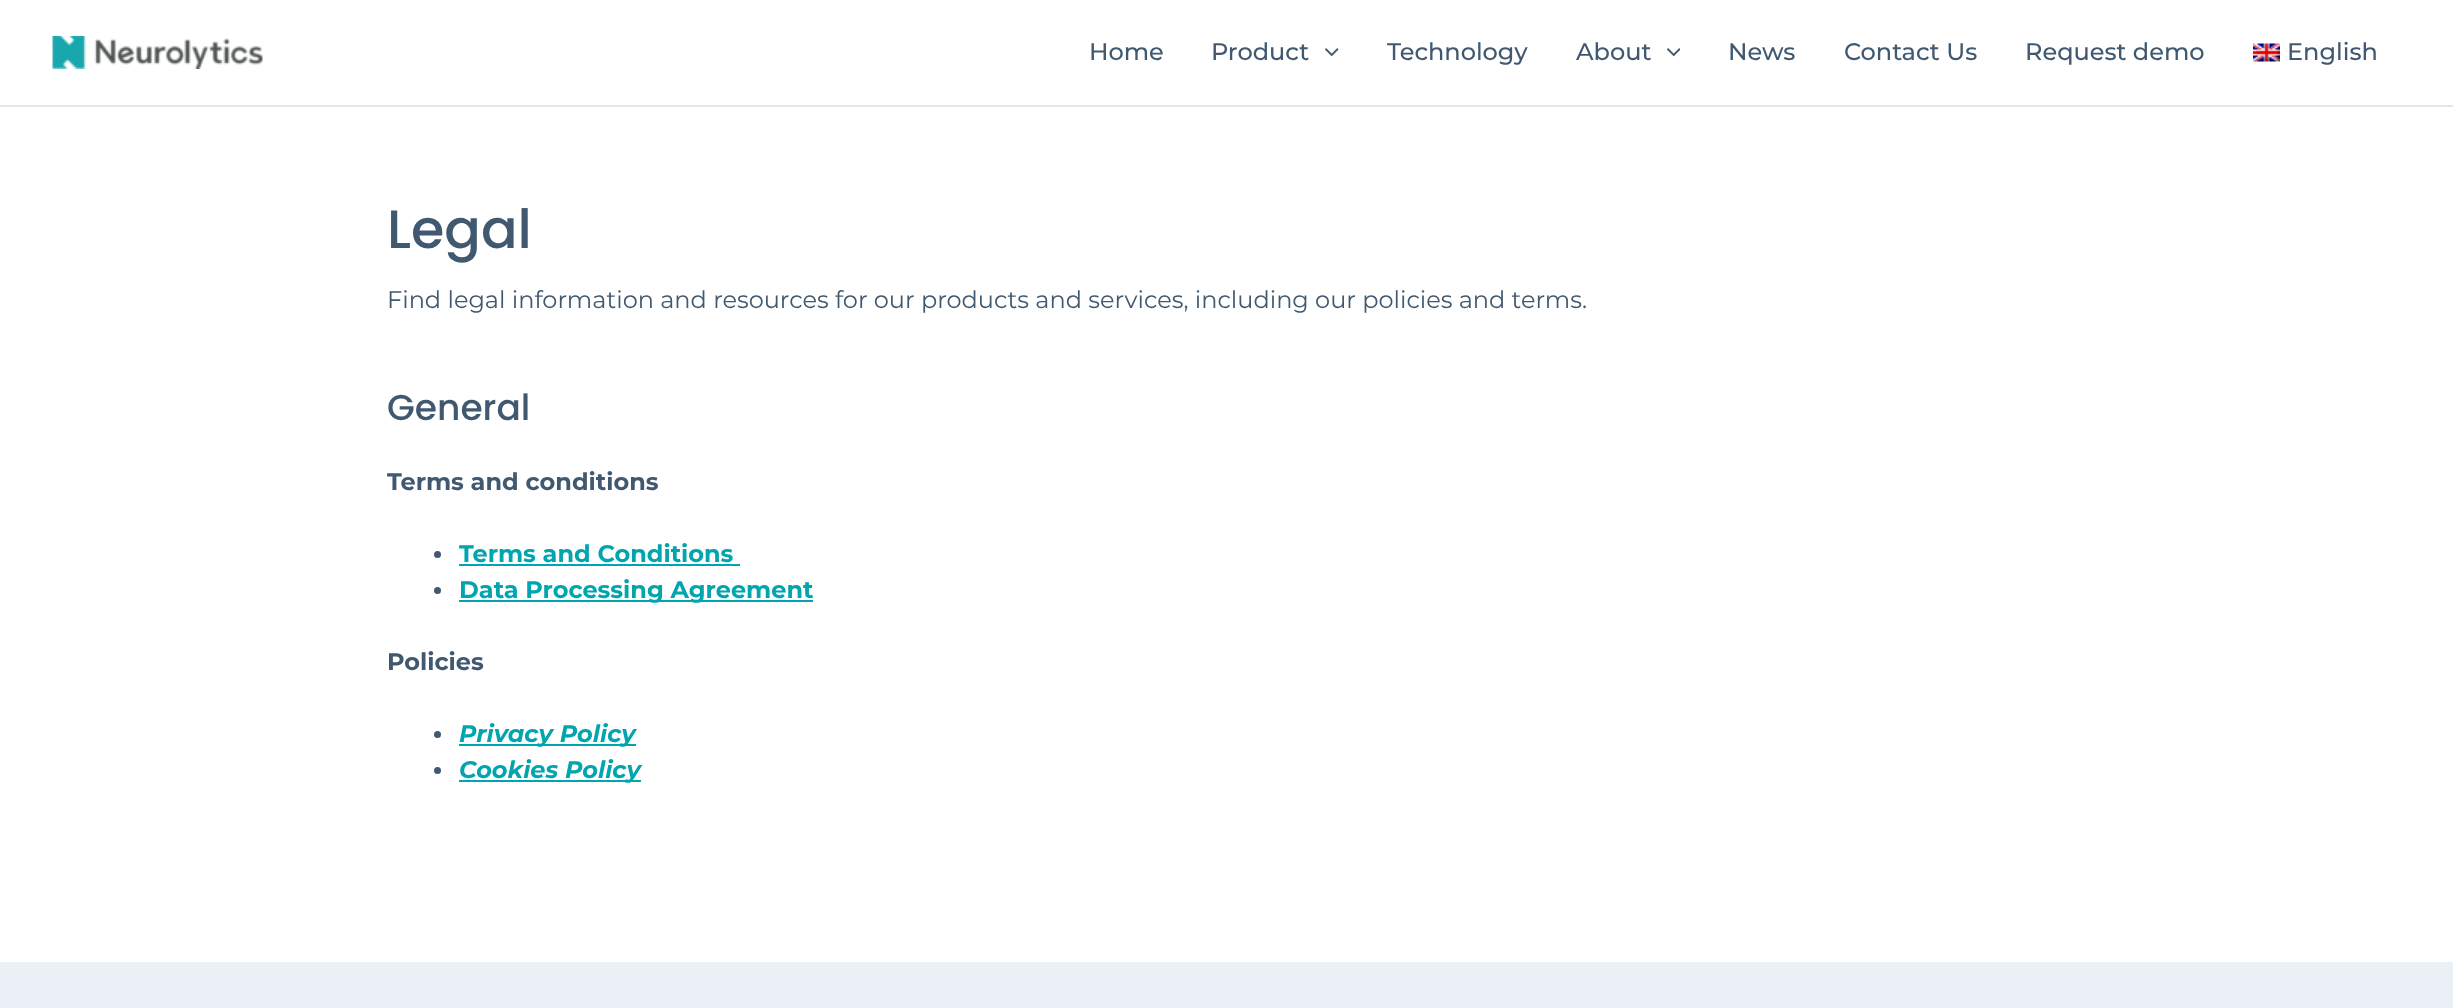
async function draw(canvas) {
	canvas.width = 2453;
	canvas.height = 1008;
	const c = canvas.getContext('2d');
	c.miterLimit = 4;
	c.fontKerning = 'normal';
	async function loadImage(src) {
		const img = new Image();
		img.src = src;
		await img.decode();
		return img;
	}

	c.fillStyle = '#fff';
	c.fillRect(0, 0, 2453, 1008);
	c.fillStyle = '#e5e5e5';
	c.fillRect(0, 105, 2453, 2);
	c.drawImage(await loadImage('img1.png'), 52, 36, 211, 33);
	c.font = '500 24px Montserrat';
	c.fillStyle = '#415970';
	c.fillText('Home', 1089, 60);
	c.fillText('Product', 1211, 60);
	c.drawImage(await loadImage('img2.png'), 1325, 48, 14, 9);
	c.fillText('Technology', 1387, 60);
	c.fillText('About', 1576, 60);
	c.drawImage(await loadImage('img3.png'), 1667, 48, 13, 9);
	for (const [text, x, y] of [
		['News', 1728, 60],
		['Contact Us', 1844, 60],
		['Request demo', 2025, 60],
	]) {
		c.fillText(text, x, y);
	}
	c.drawImage(await loadImage('img4.png'), 2253, 43, 27, 19);
	c.fillText('English', 2287, 60);
	c.font = '500 54px Poppins';
	c.fillText('Legal', 387, 248);
	c.font = '24px Montserrat';
	c.fillText('Find legal information and resources for our products and services, including our policies and terms.', 387, 308);
	c.font = '500 36px Poppins';
	c.fillText('General', 387, 420);
	c.font = 'bold 24px Montserrat';
	c.fillText('Terms and conditions', 387, 490);
	c.beginPath();
	c.arc(437.5, 554.5, 3.5, 0, 2 * Math.PI);
	c.fill();
	c.fillStyle = '#00a5ad';
	c.fillText('Terms and Conditions', 459, 562);
	c.fillRect(459, 564, 281, 2);
	c.fillStyle = '#415970';
	c.beginPath();
	c.arc(437.5, 590.5, 3.5, 0, 2 * Math.PI);
	c.fill();
	c.fillStyle = '#00a5ad';
	c.fillRect(459, 600, 354, 2);
	c.fillText('Data Processing Agreement', 459, 598);
	c.fillStyle = '#415970';
	c.fillText('Policies', 387, 670);
	c.beginPath();
	c.arc(437.5, 734.5, 3.5, 0, 2 * Math.PI);
	c.fill();
	c.fillStyle = '#00a5ad';
	c.fillRect(459, 744, 177, 2);
	c.font = 'italic bold 24px Montserrat';
	c.fillText('Privacy Policy', 459, 742);
	c.fillStyle = '#415970';
	c.beginPath();
	c.arc(437.5, 770.5, 3.5, 0, 2 * Math.PI);
	c.fill();
	c.fillStyle = '#00a5ad';
	c.fillRect(459, 780, 182, 2);
	c.fillText('Cookies Policy', 459, 778);
	c.fillStyle = '#eaf0f6';
	c.fillRect(0, 962, 2453, 46);
}

draw(document.querySelector('canvas'));
